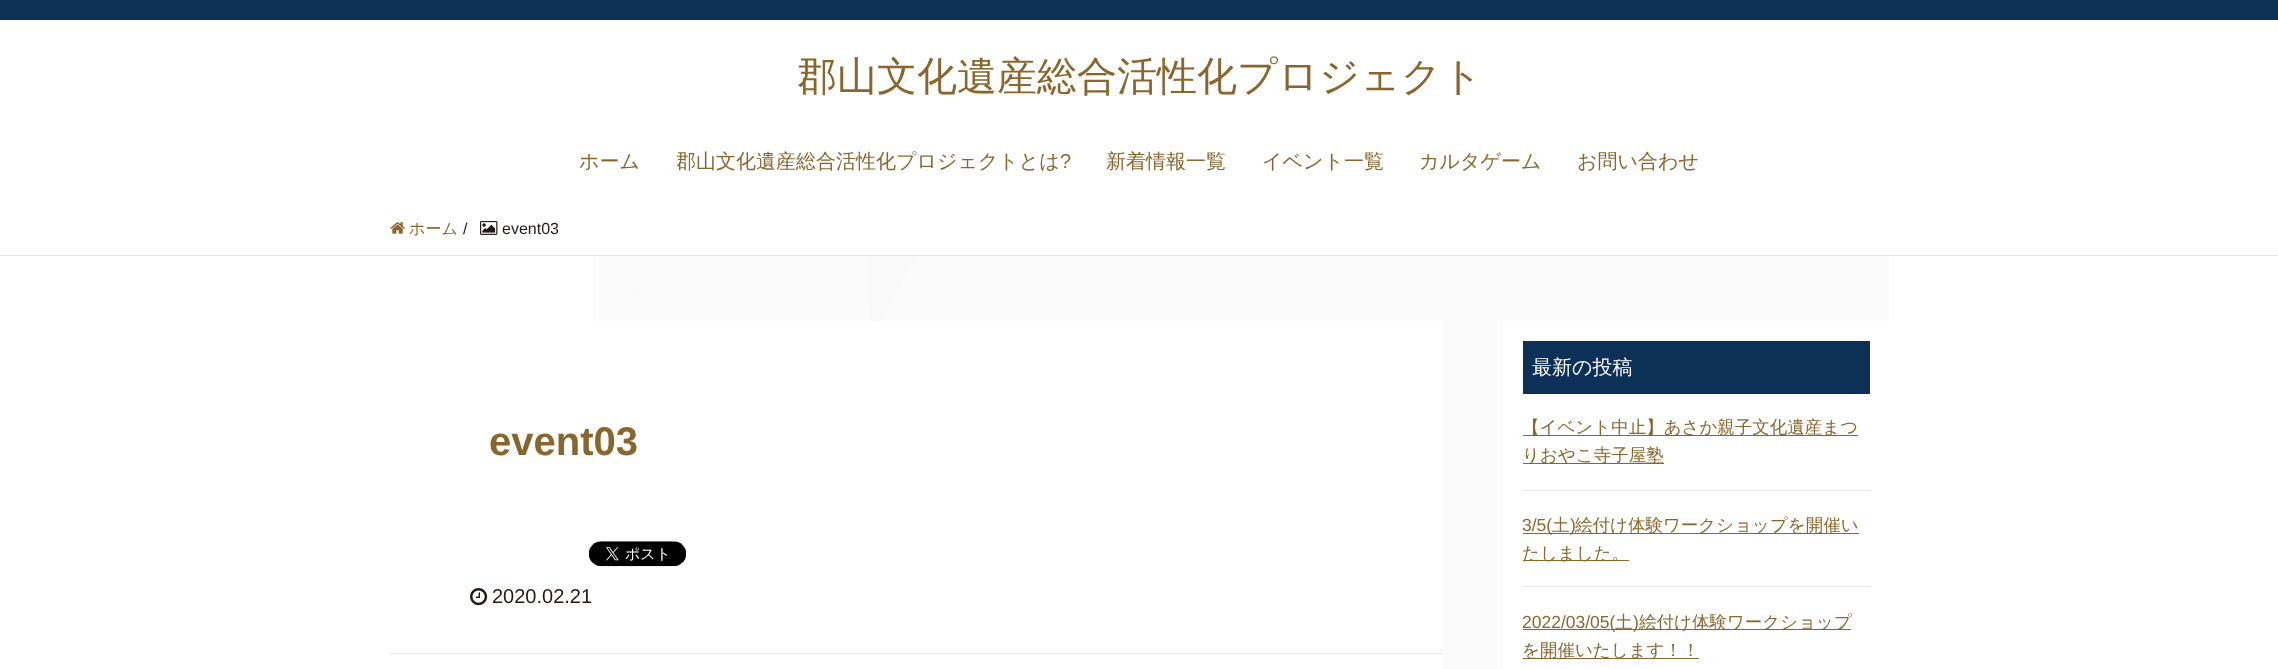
async function draw(canvas) {
	canvas.width = 2278;
	canvas.height = 669;
	const c = canvas.getContext('2d');
	c.miterLimit = 4;
	c.fontKerning = 'normal';
	async function loadImage(src) {
		const img = new Image();
		img.src = src;
		await img.decode();
		return img;
	}

	c.fillStyle = '#fff';
	c.fillRect(0, 0, 2278, 669);
	c.drawImage(await loadImage('img1.png'), 593, 256, 1296, 413);
	c.fillStyle = '#0d3057';
	c.fillRect(0, 0, 2278, 20);
	c.font = '500 40px WenQuanYi Zen Hei';
	c.fillStyle = '#89662c';
	c.fillText('郡山文化遺産総合活性化プロジェクト', 797, 90);
	c.font = '500 20px WenQuanYi Zen Hei';
	c.fillText('ホーム', 579, 168);
	c.fillText('郡山文化遺産総合活性化プロジェクトとは', 676, 168);
	c.font = '20px Liberation Sans';
	c.fillText('?', 1060, 168);
	c.font = '500 20px WenQuanYi Zen Hei';
	for (const [text, x, y] of [
		['新着情報一覧', 1106, 168],
		['イベント一覧', 1262, 168],
		['カルタゲーム', 1419, 168],
		['お問い合わせ', 1577, 168],
	]) {
		c.fillText(text, x, y);
	}
	c.fillStyle = '#e5e5e5';
	c.fillRect(0, 255, 2278, 1);
	c.drawImage(await loadImage('img2.png'), 390, 222, 15, 12);
	c.font = '500 16px WenQuanYi Zen Hei';
	c.fillStyle = '#89662c';
	c.fillText('ホーム', 409, 234);
	c.font = '16px Liberation Sans';
	c.fillStyle = '#241913';
	c.fillText('/', 463, 234);
	c.drawImage(await loadImage('img3.png'), 480, 221, 18, 14);
	c.fillText('event03', 502, 234);
	c.fillStyle = '#fff';
	c.fillRect(593, 321, 850, 348);
	c.fillStyle = '#e5e5e5';
	c.fillRect(390, 653, 1053, 1);
	c.font = 'bold 40px Liberation Sans';
	c.fillStyle = '#89662c';
	c.fillText('event03', 489, 455);
	c.drawImage(await loadImage('img4.png'), 588, 541, 99, 26);
	c.drawImage(await loadImage('img5.png'), 470, 588, 18, 18);
	c.font = '20px Liberation Sans';
	c.fillStyle = '#241913';
	c.fillText('2020.02.21', 492, 603);
	c.fillStyle = '#fff';
	c.fillRect(1503, 321, 386, 348);
	c.fillStyle = '#0d3057';
	c.fillRect(1523, 341, 347, 53);
	c.font = '500 20px WenQuanYi Zen Hei';
	c.fillStyle = '#fff';
	c.fillText('最新の投稿', 1532, 374);
	c.fillStyle = '#e5e5e5';
	c.fillRect(1523, 490, 347, 1);
	c.fillStyle = '#89662c';
	c.fillRect(1523, 435, 335, 1);
	c.font = '500 17.5px WenQuanYi Zen Hei';
	c.fillText('【イベント中止】あさか親子文化遺産まつ', 1522, 433);
	c.fillRect(1523, 463, 141, 1);
	c.fillText('りおやこ寺子屋塾', 1522, 461);
	c.fillStyle = '#e5e5e5';
	c.fillRect(1523, 586, 347, 1);
	c.fillStyle = '#89662c';
	c.fillRect(1523, 533, 336, 1);
	c.font = '17.5px Liberation Sans';
	c.fillText('3/5(', 1522, 531);
	c.font = '500 17.5px WenQuanYi Zen Hei';
	c.fillText('土', 1552, 531);
	c.font = '17.5px Liberation Sans';
	c.fillText(')', 1570, 531);
	c.font = '500 17.5px WenQuanYi Zen Hei';
	c.fillText('絵付け体験ワークショップを開催い', 1575, 531);
	c.fillRect(1523, 560, 106, 1);
	c.fillText('たしました。', 1522, 559);
	c.fillRect(1523, 629, 328, 1);
	c.font = '17.5px Liberation Sans';
	c.fillText('2022/03/05(', 1522, 628);
	c.font = '500 17.5px WenQuanYi Zen Hei';
	c.fillText('土', 1615, 628);
	c.font = '17.5px Liberation Sans';
	c.fillText(')', 1633, 628);
	c.font = '500 17.5px WenQuanYi Zen Hei';
	c.fillText('絵付け体験ワークショップ', 1639, 628);
	c.fillRect(1523, 658, 176, 1);
	c.fillText('を開催いたします！！', 1522, 656);
}

draw(document.querySelector('canvas'));
